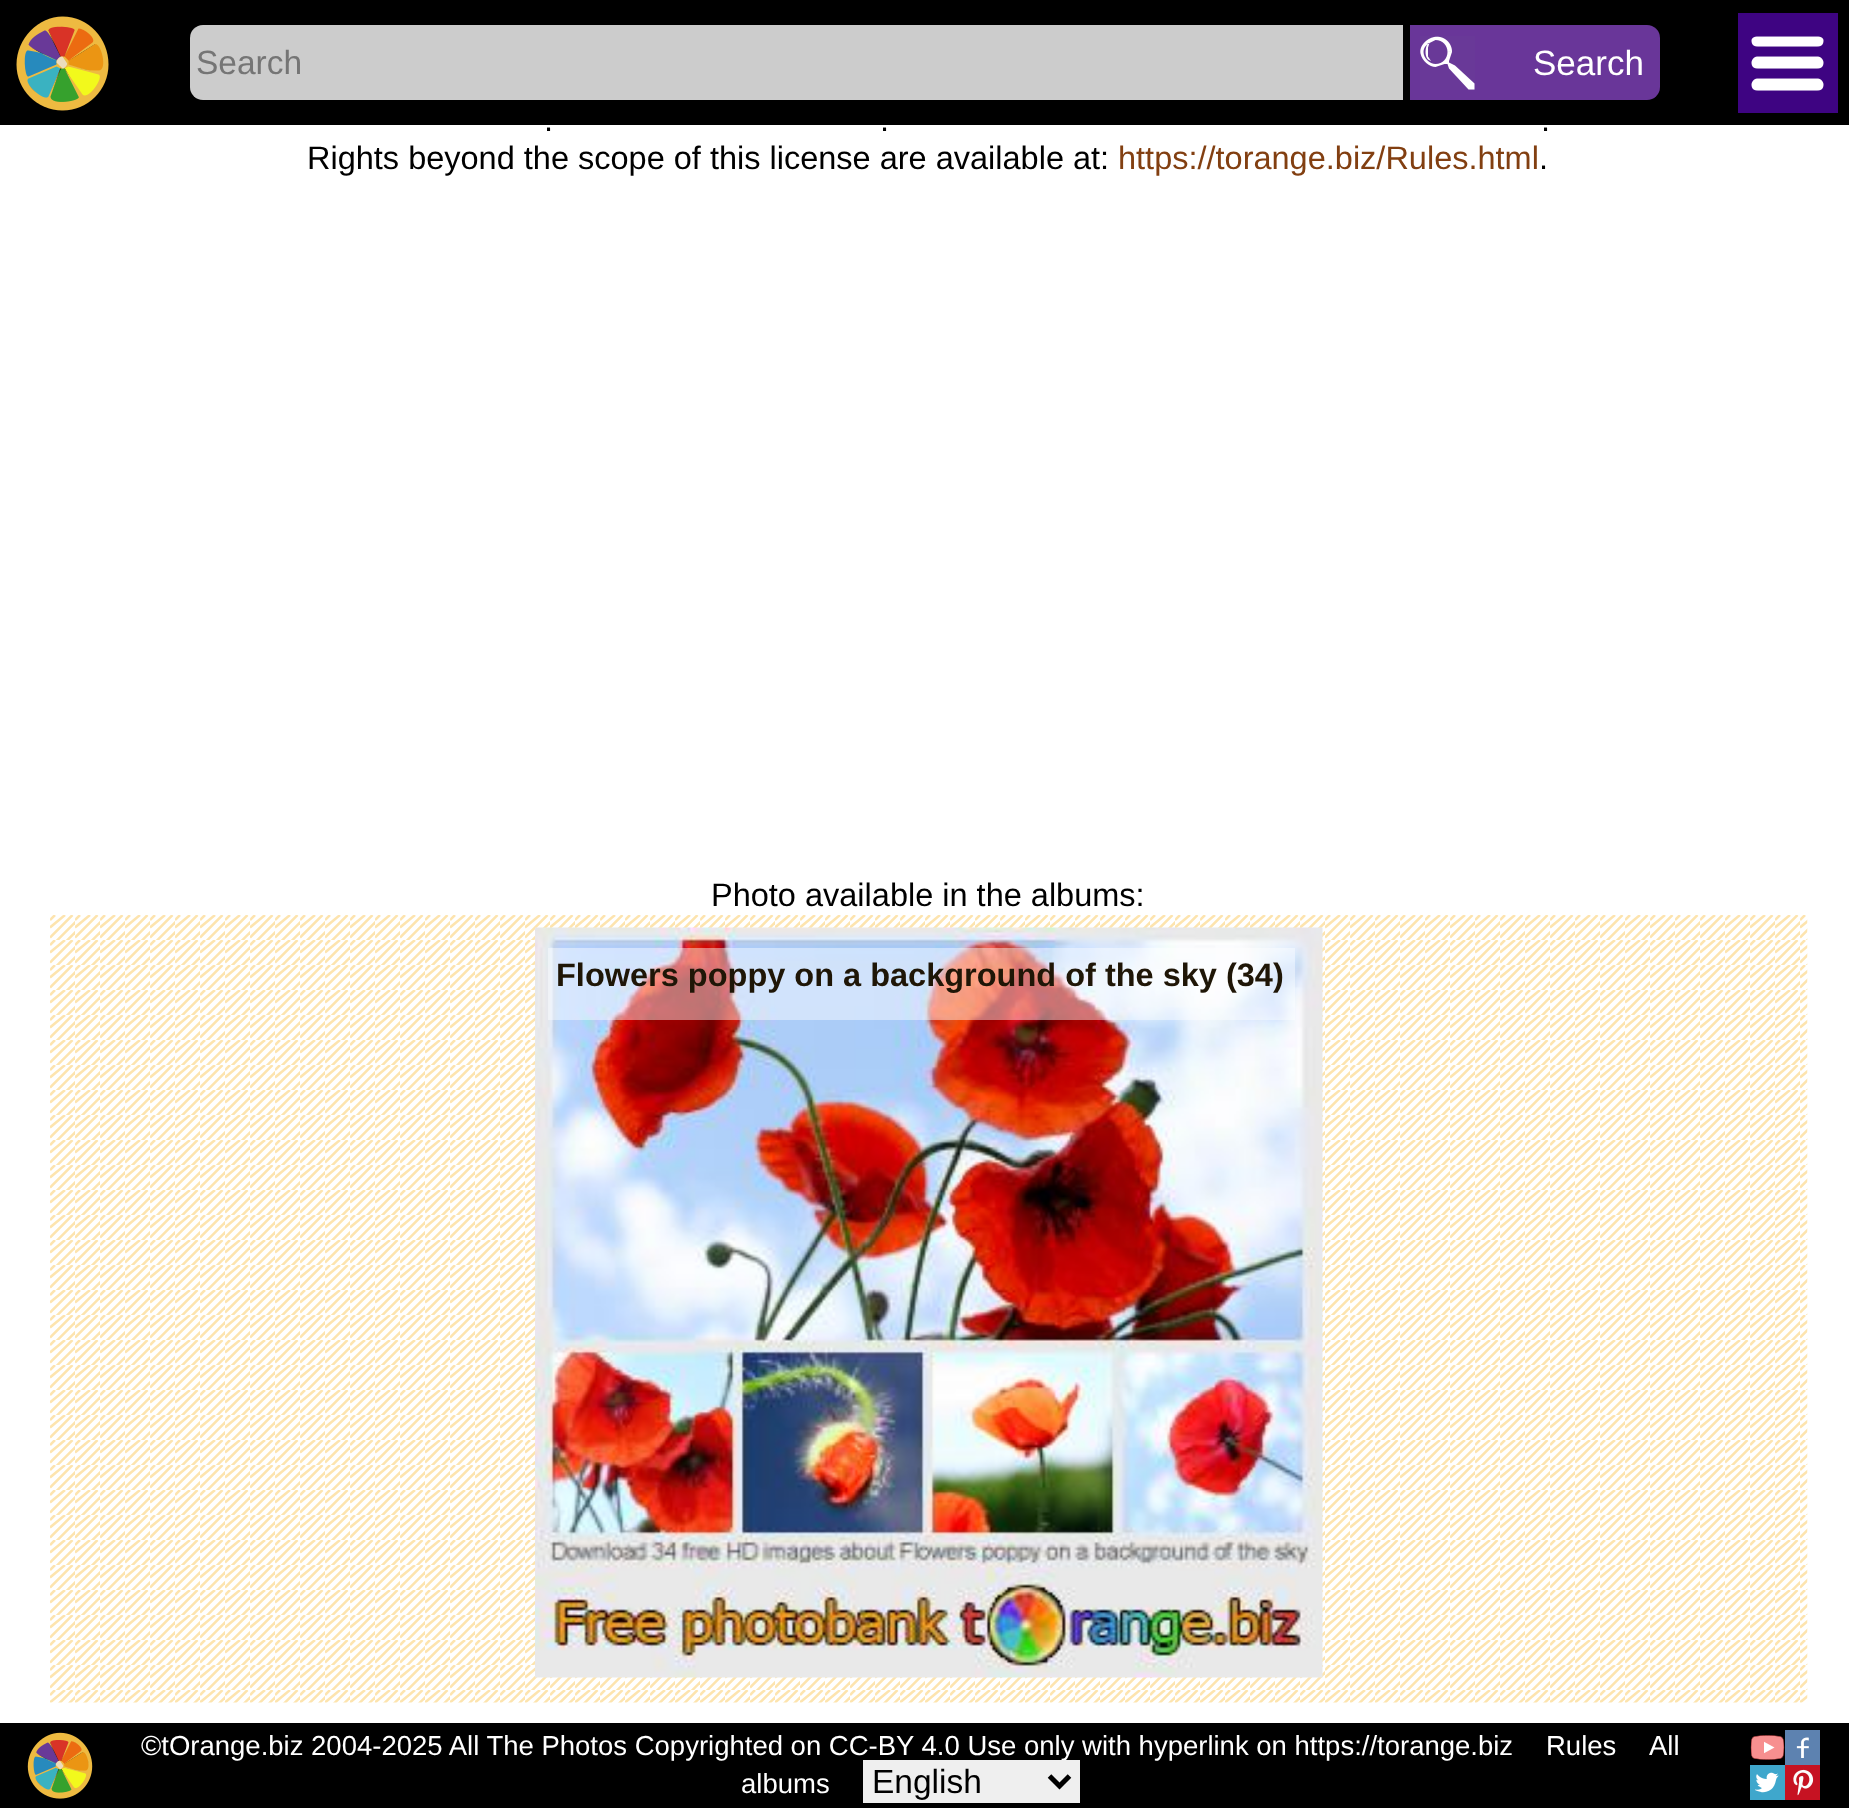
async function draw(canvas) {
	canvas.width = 1849;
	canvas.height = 1808;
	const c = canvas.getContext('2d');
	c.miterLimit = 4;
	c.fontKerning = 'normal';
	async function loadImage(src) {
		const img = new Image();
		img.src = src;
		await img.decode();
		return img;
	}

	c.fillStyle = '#fff';
	c.fillRect(0, 0, 1849, 1808);
	c.fillStyle = '#000';
	c.fillRect(0, 0, 1849, 125);
	c.drawImage(await loadImage('img1.png'), 16, 16, 93, 95);
	c.fillStyle = '#ccc';
	c.beginPath();
	c.roundRect(190, 25, 1213, 75, [13, 0, 0, 13]);
	c.fill();
	c.font = '33.5px Liberation Sans';
	c.fillStyle = '#757575';
	c.fillText('Search', 196, 74);
	c.fillStyle = '#693699';
	c.beginPath();
	c.roundRect(1410, 25, 250, 75, [0, 13, 13, 0]);
	c.fill();
	c.drawImage(await loadImage('img2.png'), 1420, 36, 55, 54);
	c.font = '35px Liberation Sans';
	c.fillStyle = '#fff';
	c.fillText('Search', 1533, 75);
	c.drawImage(await loadImage('img3.png'), 1738, 13, 100, 100);
	c.font = '32.5px Liberation Sans';
	c.fillStyle = '#000';
	for (const [text, x, y] of [
		['.', 544, 131],
		['.', 880, 131],
		['.', 1541, 131],
		['Rights beyond the scope of this license are available at:', 307, 169],
	]) {
		c.fillText(text, x, y);
	}
	c.fillStyle = '#823f11';
	c.fillText('https://torange.biz/Rules.html', 1118, 169);
	c.fillStyle = '#000';
	c.fillText('.', 1539, 169);
	c.fillText('Photo available in the albums:', 711, 906);
	c.drawImage(await loadImage('img4.png'), 50, 915, 1758, 788);
	c.drawImage(await loadImage('img5.png'), 535, 927, 788, 751);
	c.fillStyle = '#ffffff73';
	c.fillRect(548, 948, 747, 72);
	c.font = 'bold 32.5px Liberation Sans';
	c.fillStyle = '#1f1607';
	c.fillText('Flowers poppy on a background of the sky (34)', 556, 986);
	c.fillStyle = '#000';
	c.fillRect(0, 1723, 1849, 85);
	c.drawImage(await loadImage('img6.png'), 27, 1732, 66, 67);
	c.font = '27.5px Liberation Sans';
	c.fillStyle = '#fff';
	for (const [text, x, y] of [
		['©tOrange.biz 2004-2025 All The Photos Copyrighted on CC-BY 4.0 Use only with hyperlink on https://torange.biz', 141, 1755],
		['Rules', 1546, 1755],
		['All', 1649, 1755],
		['albums', 741, 1793],
	]) {
		c.fillText(text, x, y);
	}
	c.fillStyle = '#efefef';
	c.fillRect(863, 1760, 217, 43);
	c.beginPath();
	c.moveTo(1049.5, 1776);
	c.lineTo(1059.5, 1786);
	c.lineTo(1069.5, 1776);
	c.strokeStyle = '#000';
	c.lineWidth = 5;
	c.stroke();
	c.font = '33.5px Liberation Sans';
	c.fillStyle = '#000';
	c.fillText('English', 872, 1793);
	c.drawImage(await loadImage('img7.png'), 1750, 1735, 35, 25);
	c.drawImage(await loadImage('img8.png'), 1785, 1730, 35, 35);
	c.drawImage(await loadImage('img9.png'), 1750, 1765, 35, 35);
	c.drawImage(await loadImage('img10.png'), 1785, 1765, 35, 35);
}

draw(document.querySelector('canvas'));
